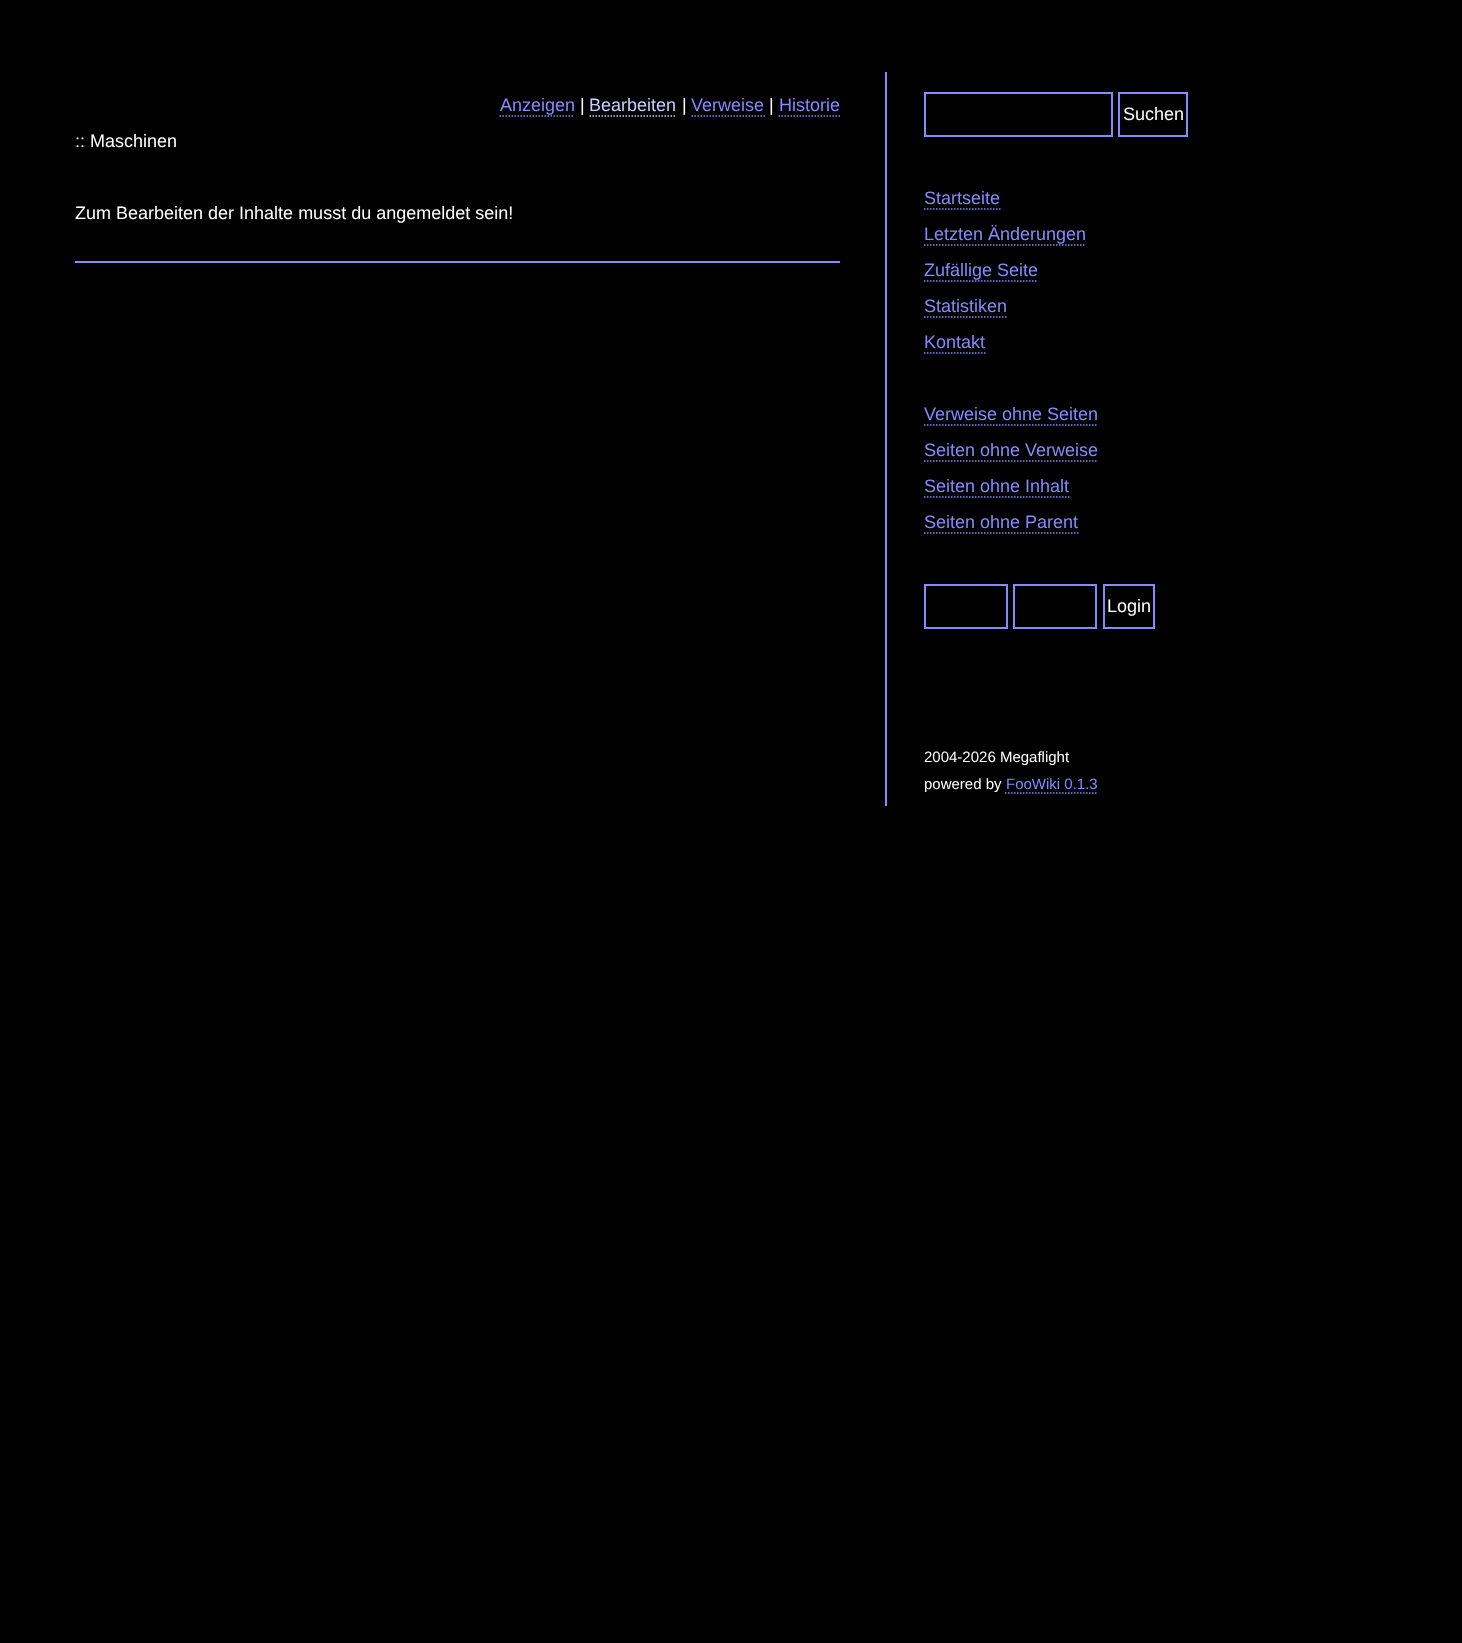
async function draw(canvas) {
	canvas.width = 1462;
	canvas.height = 1643;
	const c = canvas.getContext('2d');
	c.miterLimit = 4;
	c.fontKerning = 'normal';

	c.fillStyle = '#000';
	c.fillRect(0, 0, 1462, 1643);
	c.font = '18px Liberation Sans';
	c.fillStyle = '#88f';
	c.fillText('Anzeigen', 500, 111);
	c.beginPath();
	c.moveTo(499.5, 116);
	c.lineTo(574.5, 116);
	c.strokeStyle = '#88f';
	c.lineWidth = 1.5;
	c.setLineDash([1.5, 1.5]);
	c.stroke();
	c.fillStyle = '#fff';
	c.fillText('|', 580, 111);
	c.fillStyle = '#ccf';
	c.fillText('Bearbeiten', 589, 111);
	c.beginPath();
	c.moveTo(589.5, 116);
	c.lineTo(676.5, 116);
	c.strokeStyle = '#ccf';
	c.stroke();
	c.fillStyle = '#fff';
	c.fillText('|', 682, 111);
	c.fillStyle = '#88f';
	c.fillText('Verweise', 691, 111);
	c.beginPath();
	c.moveTo(691.5, 116);
	c.lineTo(765, 116);
	c.strokeStyle = '#88f';
	c.stroke();
	c.fillStyle = '#fff';
	c.fillText('|', 769, 111);
	c.fillStyle = '#88f';
	c.fillText('Historie', 779, 111);
	c.beginPath();
	c.moveTo(778.5, 116);
	c.lineTo(840, 116);
	c.stroke();
	c.fillStyle = '#fff';
	c.fillText(':: Maschinen', 75, 147);
	c.fillText('Zum Bearbeiten der Inhalte musst du angemeldet sein!', 75, 219);
	c.fillStyle = '#88f';
	c.fillRect(75, 261, 765, 2);
	c.fillRect(885, 72, 2, 734);
	c.lineWidth = 2;
	c.setLineDash([]);
	c.strokeRect(925, 93, 187, 43);
	c.strokeRect(1119, 93, 68, 43);
	c.fillStyle = '#fff';
	c.fillText('Suchen', 1123, 120);
	c.fillStyle = '#88f';
	c.fillText('Startseite', 924, 204);
	c.beginPath();
	c.moveTo(924, 209);
	c.lineTo(1000.5, 209);
	c.lineWidth = 1.5;
	c.setLineDash([1.5, 1.5]);
	c.stroke();
	c.fillText('Letzten Änderungen', 924, 240);
	c.beginPath();
	c.moveTo(924, 245);
	c.lineTo(1086, 245);
	c.stroke();
	c.fillText('Zufällige Seite', 924, 276);
	c.beginPath();
	c.moveTo(924, 281);
	c.lineTo(1038, 281);
	c.stroke();
	c.fillText('Statistiken', 924, 312);
	c.beginPath();
	c.moveTo(924, 317);
	c.lineTo(1006.5, 317);
	c.stroke();
	c.fillText('Kontakt', 924, 348);
	c.beginPath();
	c.moveTo(924, 353);
	c.lineTo(985.5, 353);
	c.stroke();
	c.fillText('Verweise ohne Seiten', 924, 420);
	c.beginPath();
	c.moveTo(924, 425);
	c.lineTo(1098, 425);
	c.stroke();
	c.fillText('Seiten ohne Verweise', 924, 456);
	c.beginPath();
	c.moveTo(924, 461);
	c.lineTo(1098, 461);
	c.stroke();
	c.fillText('Seiten ohne Inhalt', 924, 492);
	c.beginPath();
	c.moveTo(924, 497);
	c.lineTo(1069.5, 497);
	c.stroke();
	c.fillText('Seiten ohne Parent', 924, 528);
	c.beginPath();
	c.moveTo(924, 533);
	c.lineTo(1078.5, 533);
	c.stroke();
	c.lineWidth = 2;
	c.setLineDash([]);
	c.strokeRect(925, 585, 82, 43);
	c.strokeRect(1014, 585, 82, 43);
	c.strokeRect(1104, 585, 50, 43);
	c.fillStyle = '#fff';
	c.fillText('Login', 1107, 612);
	c.font = '15px Liberation Sans';
	c.fillText('2004-2026 Megaflight', 924, 762);
	c.fillText('powered by', 924, 789);
	c.fillStyle = '#88f';
	c.fillText('FooWiki 0.1.3', 1006, 789);
	c.beginPath();
	c.moveTo(1005, 793);
	c.lineTo(1098, 793);
	c.lineWidth = 1.5;
	c.setLineDash([1.5, 1.5]);
	c.stroke();
}

draw(document.querySelector('canvas'));
